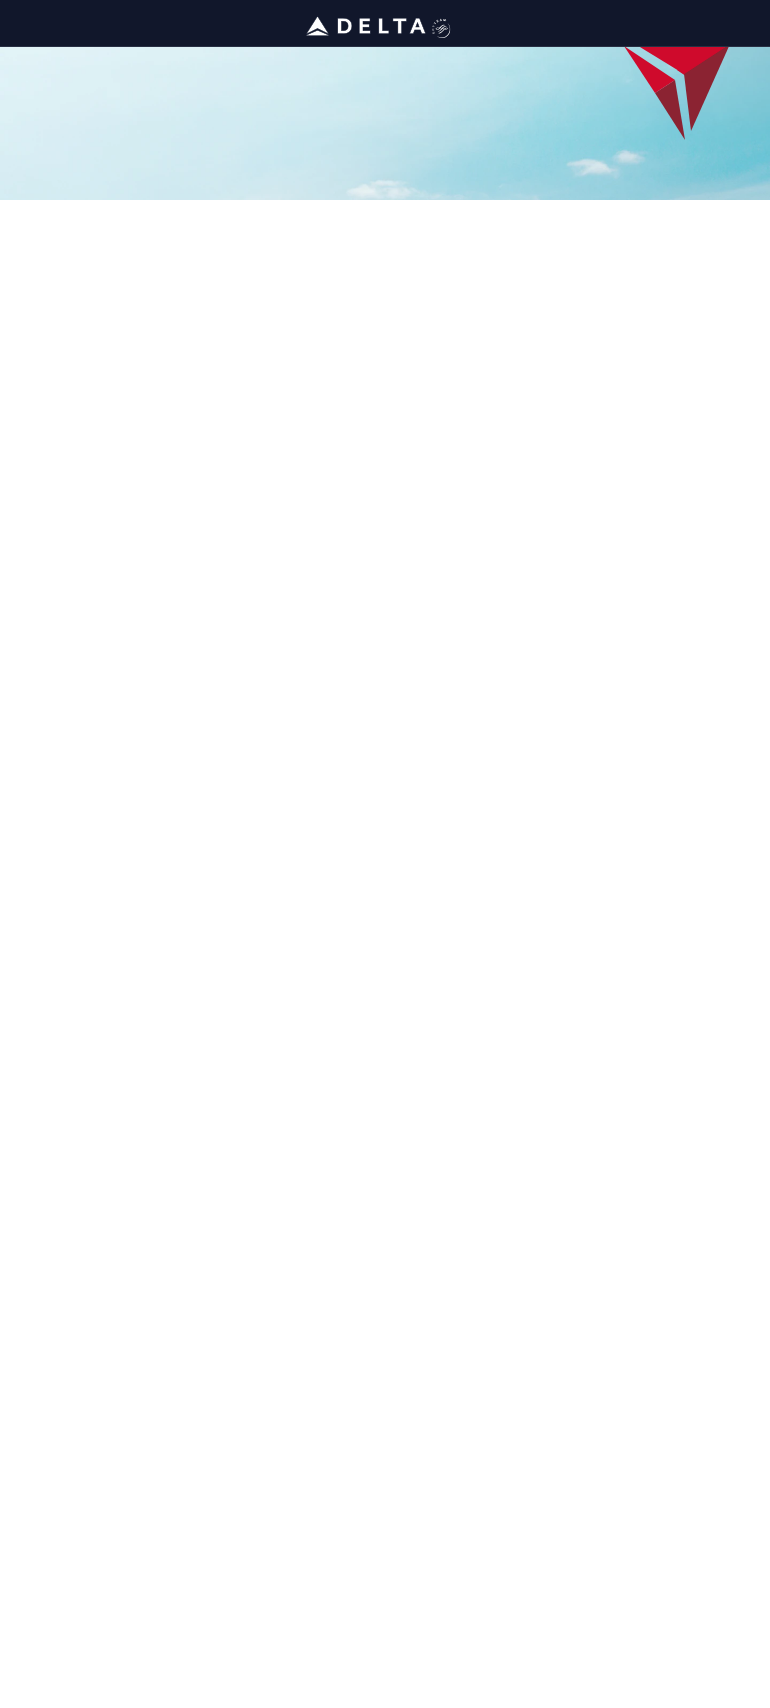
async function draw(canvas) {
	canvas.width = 770;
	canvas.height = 1708;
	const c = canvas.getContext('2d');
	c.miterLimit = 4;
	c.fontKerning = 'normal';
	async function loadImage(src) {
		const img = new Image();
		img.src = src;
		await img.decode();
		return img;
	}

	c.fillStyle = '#fff';
	c.fillRect(0, 0, 770, 1708);
	c.drawImage(await loadImage('img3.png'), 0, 47, 770, 153);
	c.fillStyle = '#cf0a2c';
	c.beginPath();
	c.moveTo(729, 45);
	c.lineTo(699, 85);
	c.lineTo(677, 70);
	c.closePath();
	c.fill('evenodd');
	c.fillStyle = '#8b2332';
	c.beginPath();
	c.moveTo(684, 74);
	c.lineTo(691, 131);
	c.lineTo(730, 44);
	c.closePath();
	c.fill('evenodd');
	c.fillStyle = '#cf0a2c';
	c.beginPath();
	c.moveTo(730, 44);
	c.lineTo(635, 44);
	c.lineTo(684, 74);
	c.closePath();
	c.fill('evenodd');
	c.fillStyle = '#11172b';
	c.fillRect(0, 0, 770, 46);
	c.fillStyle = '#8b2332';
	c.beginPath();
	c.moveTo(655, 93);
	c.lineTo(685, 140);
	c.lineTo(675, 80);
	c.closePath();
	c.fill('evenodd');
	c.fillStyle = '#cf0a2c';
	c.beginPath();
	c.moveTo(624, 46);
	c.lineTo(655, 93);
	c.lineTo(675, 80);
	c.closePath();
	c.fill('evenodd');
	c.fillStyle = '#282f43';
	c.fillRect(0, 46, 770, 1);
	c.drawImage(await loadImage('img1.png'), 306, 15, 120, 21);
	c.drawImage(await loadImage('img2.png'), 432, 18, 19, 20);
}

draw(document.querySelector('canvas'));
